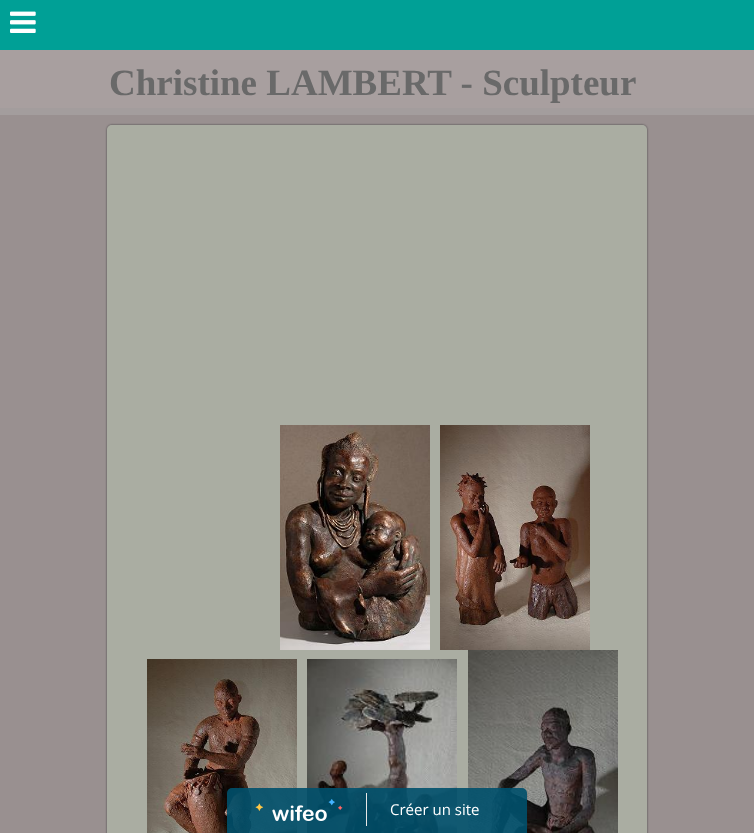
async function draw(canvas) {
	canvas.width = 754;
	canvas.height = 833;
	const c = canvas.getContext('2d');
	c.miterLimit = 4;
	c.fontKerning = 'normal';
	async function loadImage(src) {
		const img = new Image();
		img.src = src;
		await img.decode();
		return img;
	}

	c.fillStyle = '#999090';
	c.fillRect(0, 0, 754, 833);
	c.save();
	c.beginPath();
	c.moveTo(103, 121);
	c.lineTo(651, 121);
	c.lineTo(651, 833);
	c.lineTo(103, 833);
	c.closePath();
	c.moveTo(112, 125);
	c.lineTo(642, 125);
	c.bezierCurveTo(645, 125, 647, 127, 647, 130);
	c.lineTo(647, 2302);
	c.bezierCurveTo(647, 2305, 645, 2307, 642, 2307);
	c.lineTo(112, 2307);
	c.bezierCurveTo(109, 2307, 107, 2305, 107, 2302);
	c.lineTo(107, 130);
	c.bezierCurveTo(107, 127, 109, 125, 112, 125);
	c.closePath();
	c.clip('evenodd');
	c.fillStyle = '#444';
	c.filter = 'blur(1px)';
	c.beginPath();
	c.roundRect(107, 125, 540, 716, 5);
	c.fill();
	c.filter = 'none';
	c.restore();
	c.fillStyle = '#adb3a6d4';
	c.beginPath();
	c.roundRect(107, 125, 540, 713, 5);
	c.fill();
	c.fillStyle = '#00a096';
	c.fillRect(0, 0, 754, 50);
	c.drawImage(await loadImage('img1.png'), 10, 11, 26, 22);
	c.drawImage(await loadImage('img2.png'), 280, 425, 150, 225);
	c.drawImage(await loadImage('img3.png'), 440, 425, 150, 225);
	c.drawImage(await loadImage('img4.png'), 147, 659, 150, 174);
	c.drawImage(await loadImage('img5.png'), 307, 659, 150, 174);
	c.drawImage(await loadImage('img6.png'), 468, 650, 150, 183);
	c.fillStyle = '#a39d9d';
	c.fillRect(0, 108, 754, 7);
	c.fillStyle = '#a89f9f';
	c.fillRect(0, 50, 754, 58);
	c.font = 'bold 37px Liberation Serif';
	c.fillStyle = '#696969';
	c.fillText('Christine LAMBERT - Sculpteur', 109, 95);
	c.fillStyle = '#00506be6';
	c.beginPath();
	c.roundRect(227, 788, 300, 45, [5, 5, 0, 0]);
	c.fill();
	c.fillStyle = '#e7e7e7';
	c.fillRect(366, 793, 1, 33);
	c.drawImage(await loadImage('img7.png'), 255, 799, 88, 22);
	c.font = '15px Open Sans';
	c.fillStyle = '#fff';
	c.fillText('Créer un site', 390, 815);
}

draw(document.querySelector('canvas'));
